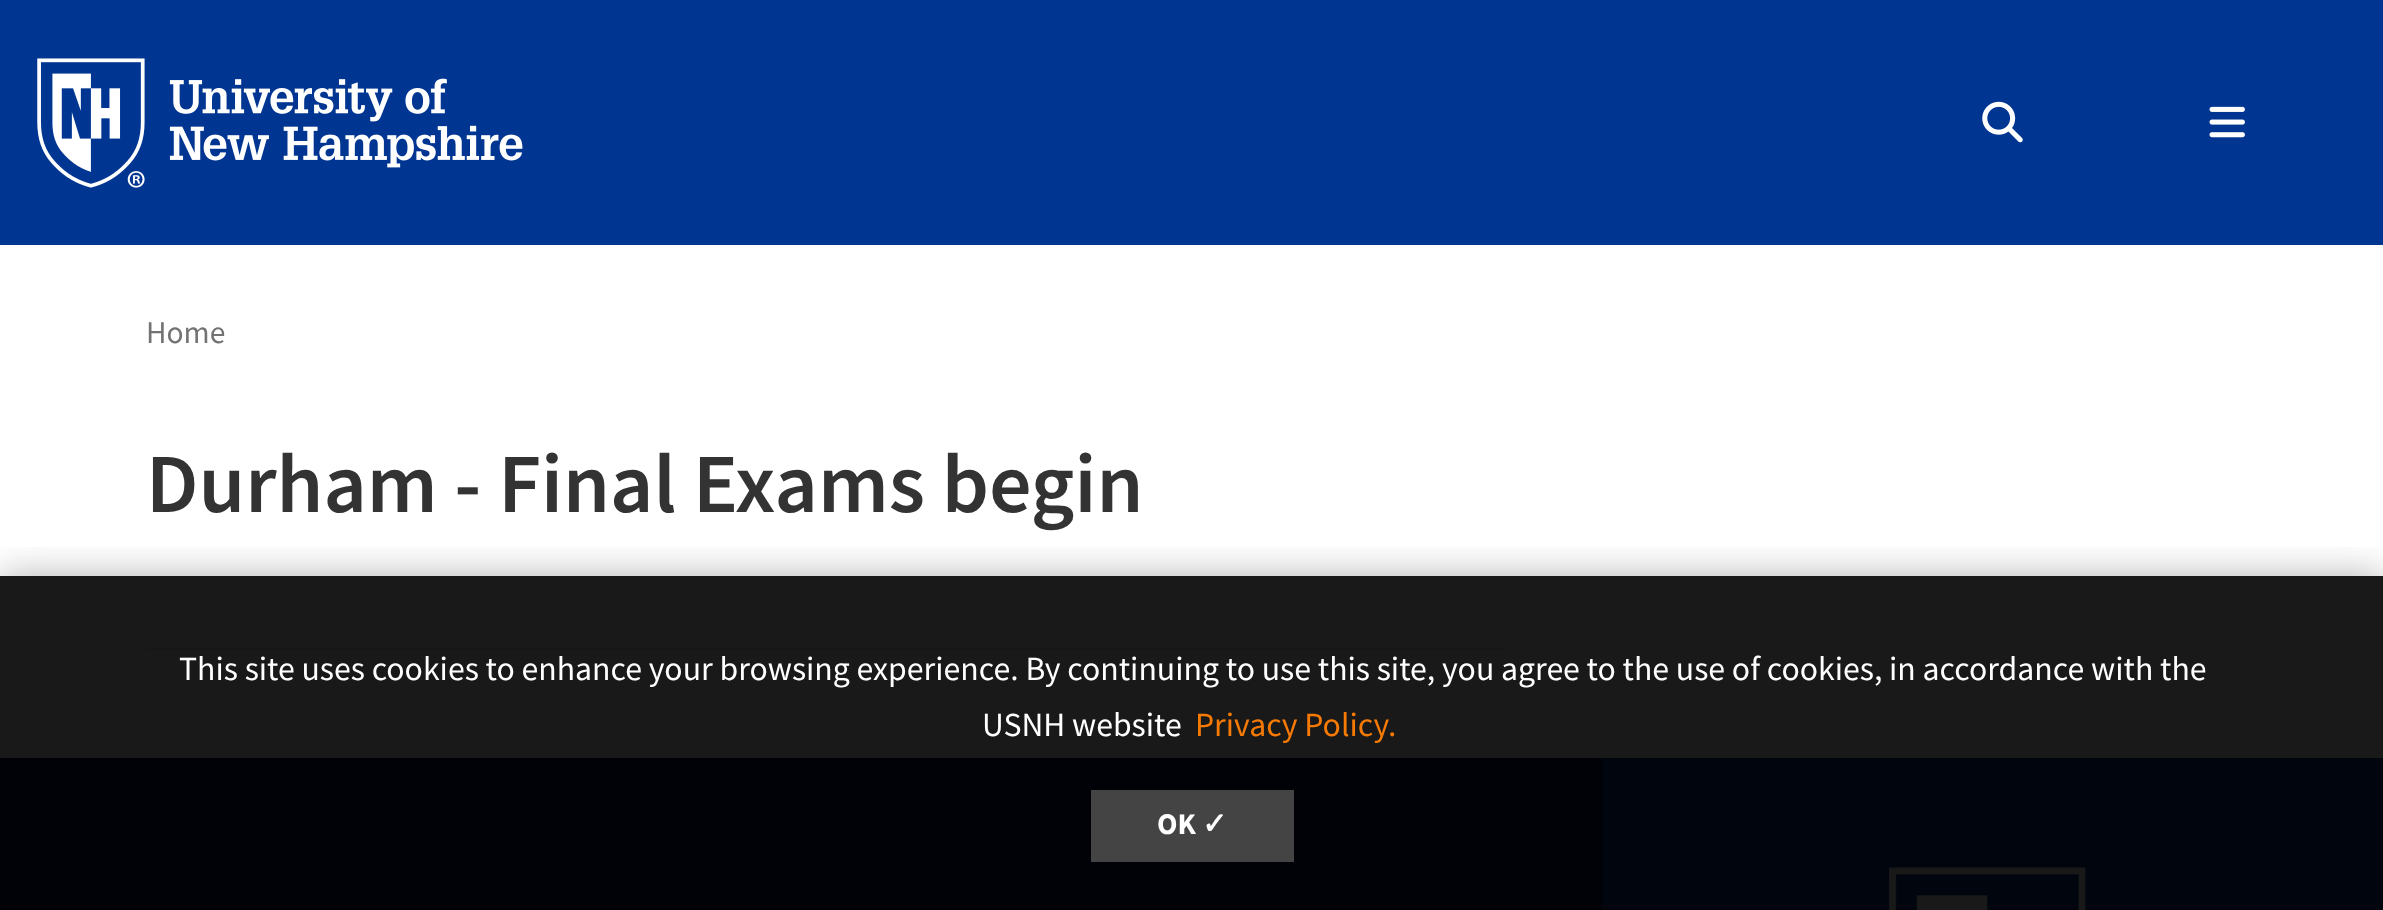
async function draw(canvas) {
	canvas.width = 2383;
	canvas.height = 910;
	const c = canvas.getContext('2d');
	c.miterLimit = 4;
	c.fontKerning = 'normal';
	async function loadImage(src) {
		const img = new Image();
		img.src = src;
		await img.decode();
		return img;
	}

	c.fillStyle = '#fff';
	c.fillRect(0, 0, 2383, 910);
	c.fillStyle = '#003591';
	c.fillRect(0, 0, 2383, 245);
	c.drawImage(await loadImage('img1.png'), 37, 58, 486, 130);
	c.drawImage(await loadImage('img2.png'), 1982, 101, 41, 42);
	c.drawImage(await loadImage('img3.png'), 2209, 106, 36, 32);
	c.font = '31.5px Source Sans Pro';
	c.fillStyle = '#737373';
	c.fillText('Home', 146, 343);
	c.font = '600 84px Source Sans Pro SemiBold';
	c.fillStyle = '#333';
	c.fillText('Durham - Final Exams begin', 146, 512);
	for (const [x, y, w, h, color] of [
		[146, 648, 1362, 2, '#e6e6e6'],
		[0, 758, 1602, 152, '#001d52'],
		[1602, 758, 781, 152, '#003591'],
	]) {
		c.fillStyle = color;
		c.fillRect(x, y, w, h);
	}
	c.drawImage(await loadImage('img4.png'), 1888, 867, 198, 43);
	c.save();
	c.beginPath();
	c.rect(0, 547, 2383, 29);
	c.clip();
	c.fillStyle = '#0000004d';
	c.filter = 'blur(19px)';
	c.beginPath();
	c.rect(0, 576, 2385, 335);
	c.fill();
	c.filter = 'none';
	c.restore();
	c.fillStyle = '#000000e6';
	c.fillRect(0, 576, 2383, 334);
	c.font = '33.75px Source Sans Pro';
	c.fillStyle = '#fff';
	c.fillText('This site uses cookies to enhance your browsing experience. By continuing to use this site, you agree to the use of cookies, in accordance with the', 179, 680);
	c.fillText('USNH website', 982, 736);
	c.fillStyle = '#f77a05';
	c.fillText('Privacy Policy.', 1195, 736);
	c.fillStyle = '#444';
	c.fillRect(1091, 790, 203, 72);
	c.font = 'bold 30px Source Sans Pro';
	c.fillStyle = '#fff';
	c.fillText('OK', 1157, 834);
	c.font = 'bold 30px DejaVu Sans';
	c.fillText('✓', 1202, 834);
}

draw(document.querySelector('canvas'));
